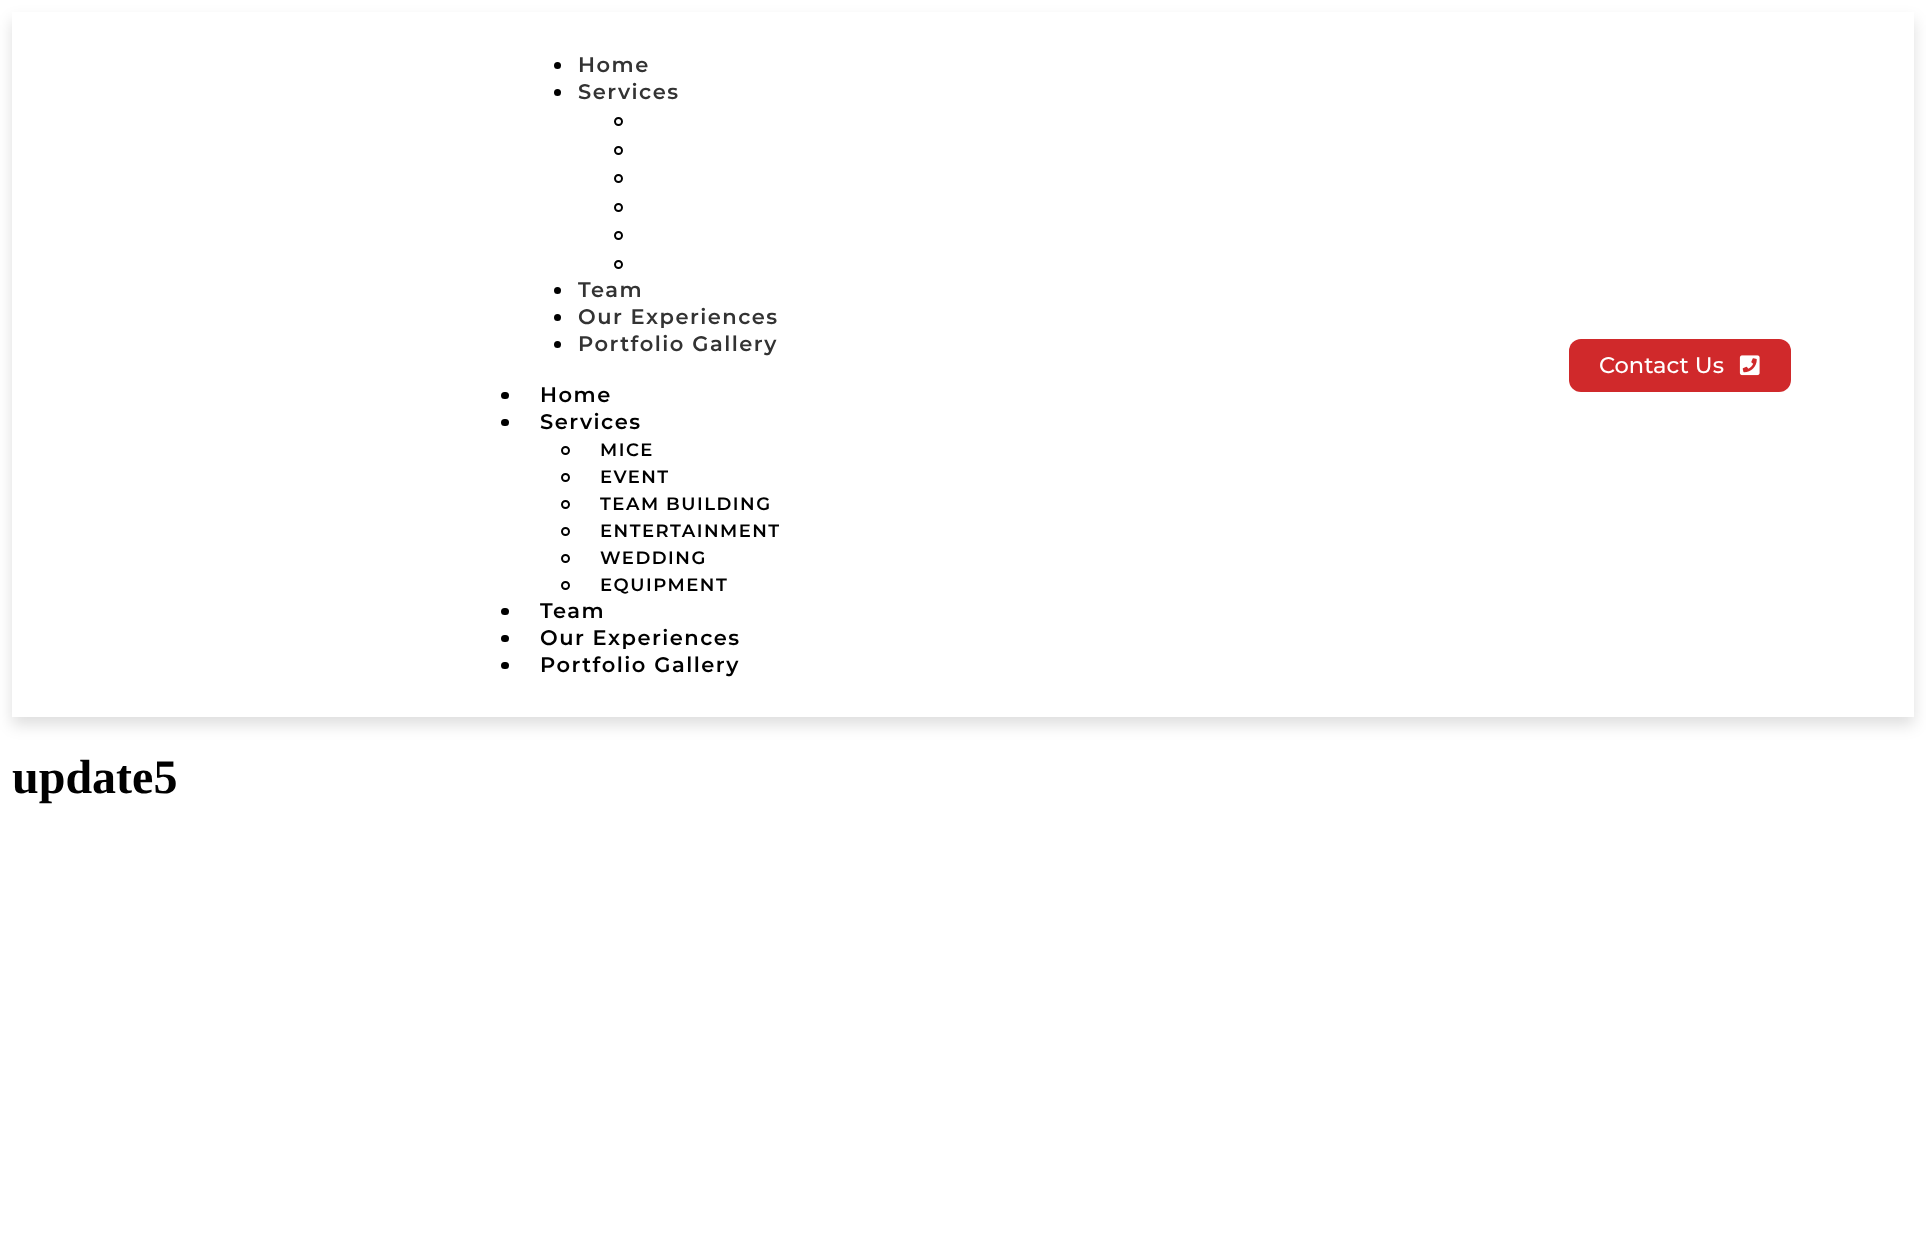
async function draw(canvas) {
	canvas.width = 1926;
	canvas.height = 1253;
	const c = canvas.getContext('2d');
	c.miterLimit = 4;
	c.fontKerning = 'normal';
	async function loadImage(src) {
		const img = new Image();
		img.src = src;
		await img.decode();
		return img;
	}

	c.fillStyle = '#fff';
	c.fillRect(0, 0, 1926, 1253);
	c.save();
	c.beginPath();
	c.moveTo(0, 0);
	c.lineTo(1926, 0);
	c.lineTo(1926, 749);
	c.lineTo(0, 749);
	c.closePath();
	c.moveTo(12, 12);
	c.lineTo(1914, 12);
	c.lineTo(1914, 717);
	c.lineTo(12, 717);
	c.closePath();
	c.clip('evenodd');
	c.fillStyle = '#00000021';
	c.filter = 'blur(7.5px)';
	c.beginPath();
	c.rect(12, 20, 1902, 705);
	c.fill();
	c.filter = 'none';
	c.restore();
	c.fillStyle = '#000';
	c.beginPath();
	c.arc(557.5, 65.5, 3.5, 0, 2 * Math.PI);
	c.fill();
	c.letterSpacing = '1.5px';
	c.font = '600 21px Montserrat';
	c.fillStyle = '#333';
	c.fillText('Home', 578, 72);
	c.fillStyle = '#000';
	c.beginPath();
	c.arc(557.5, 92.5, 3.5, 0, 2 * Math.PI);
	c.fill();
	c.fillStyle = '#333';
	c.fillText('Services', 578, 99);
	c.beginPath();
	c.arc(618.5, 121.5, 3.5, 0, 2 * Math.PI);
	c.strokeStyle = '#000';
	c.lineWidth = 2;
	c.stroke();
	c.beginPath();
	c.arc(618.5, 150.5, 3.5, 0, 2 * Math.PI);
	c.stroke();
	c.beginPath();
	c.arc(618.5, 178.5, 3.5, 0, 2 * Math.PI);
	c.stroke();
	c.beginPath();
	c.arc(618.5, 207.5, 3.5, 0, 2 * Math.PI);
	c.stroke();
	c.beginPath();
	c.arc(618.5, 235.5, 3.5, 0, 2 * Math.PI);
	c.stroke();
	c.beginPath();
	c.arc(618.5, 264.5, 3.5, 0, 2 * Math.PI);
	c.stroke();
	c.fillStyle = '#000';
	c.beginPath();
	c.arc(557.5, 290.5, 3.5, 0, 2 * Math.PI);
	c.fill();
	c.fillStyle = '#333';
	c.fillText('Team', 578, 297);
	c.fillStyle = '#000';
	c.beginPath();
	c.arc(557.5, 317.5, 3.5, 0, 2 * Math.PI);
	c.fill();
	c.fillStyle = '#333';
	c.fillText('Our Experiences', 578, 324);
	c.fillStyle = '#000';
	c.beginPath();
	c.arc(557.5, 344.5, 3.5, 0, 2 * Math.PI);
	c.fill();
	c.fillStyle = '#333';
	c.fillText('Portfolio Gallery', 578, 351);
	c.fillStyle = '#000';
	c.beginPath();
	c.roundRect(501, 392, 8, 7, 3.5);
	c.fill();
	c.fillText('Home', 540, 402);
	c.beginPath();
	c.roundRect(501, 419, 8, 7, 3.5);
	c.fill();
	c.fillText('Services', 540, 429);
	c.beginPath();
	c.arc(565.5, 450.5, 3.5, 0, 2 * Math.PI);
	c.stroke();
	c.font = '600 18px Montserrat';
	c.fillText('MICE', 600, 456);
	c.beginPath();
	c.arc(565.5, 477.5, 3.5, 0, 2 * Math.PI);
	c.stroke();
	c.fillText('EVENT', 600, 483);
	c.beginPath();
	c.arc(565.5, 504.5, 3.5, 0, 2 * Math.PI);
	c.stroke();
	c.fillText('TEAM BUILDING', 600, 510);
	c.beginPath();
	c.arc(565.5, 531.5, 3.5, 0, 2 * Math.PI);
	c.stroke();
	c.fillText('ENTERTAINMENT', 600, 537);
	c.beginPath();
	c.arc(565.5, 558.5, 3.5, 0, 2 * Math.PI);
	c.stroke();
	c.fillText('WEDDING', 600, 564);
	c.beginPath();
	c.arc(565.5, 585.5, 3.5, 0, 2 * Math.PI);
	c.stroke();
	c.fillText('EQUIPMENT', 600, 591);
	c.beginPath();
	c.roundRect(501, 608, 8, 7, 3.5);
	c.fill();
	c.font = '600 21px Montserrat';
	c.fillText('Team', 540, 618);
	c.beginPath();
	c.roundRect(501, 635, 8, 7, 3.5);
	c.fill();
	c.fillText('Our Experiences', 540, 645);
	c.beginPath();
	c.roundRect(501, 662, 8, 7, 3.5);
	c.fill();
	c.fillText('Portfolio Gallery', 540, 672);
	c.fillStyle = '#d0292b';
	c.beginPath();
	c.roundRect(1569, 339, 222, 53, 12);
	c.fill();
	c.letterSpacing = '0px';
	c.font = '500 22.5px Montserrat';
	c.fillStyle = '#fff';
	c.fillText('Contact Us', 1599, 373);
	c.drawImage(await loadImage('img1.png'), 1739, 355, 21, 21);
	c.font = 'bold 48px Liberation Serif';
	c.fillStyle = '#000';
	c.fillText('update5', 12, 793);
}

draw(document.querySelector('canvas'));
